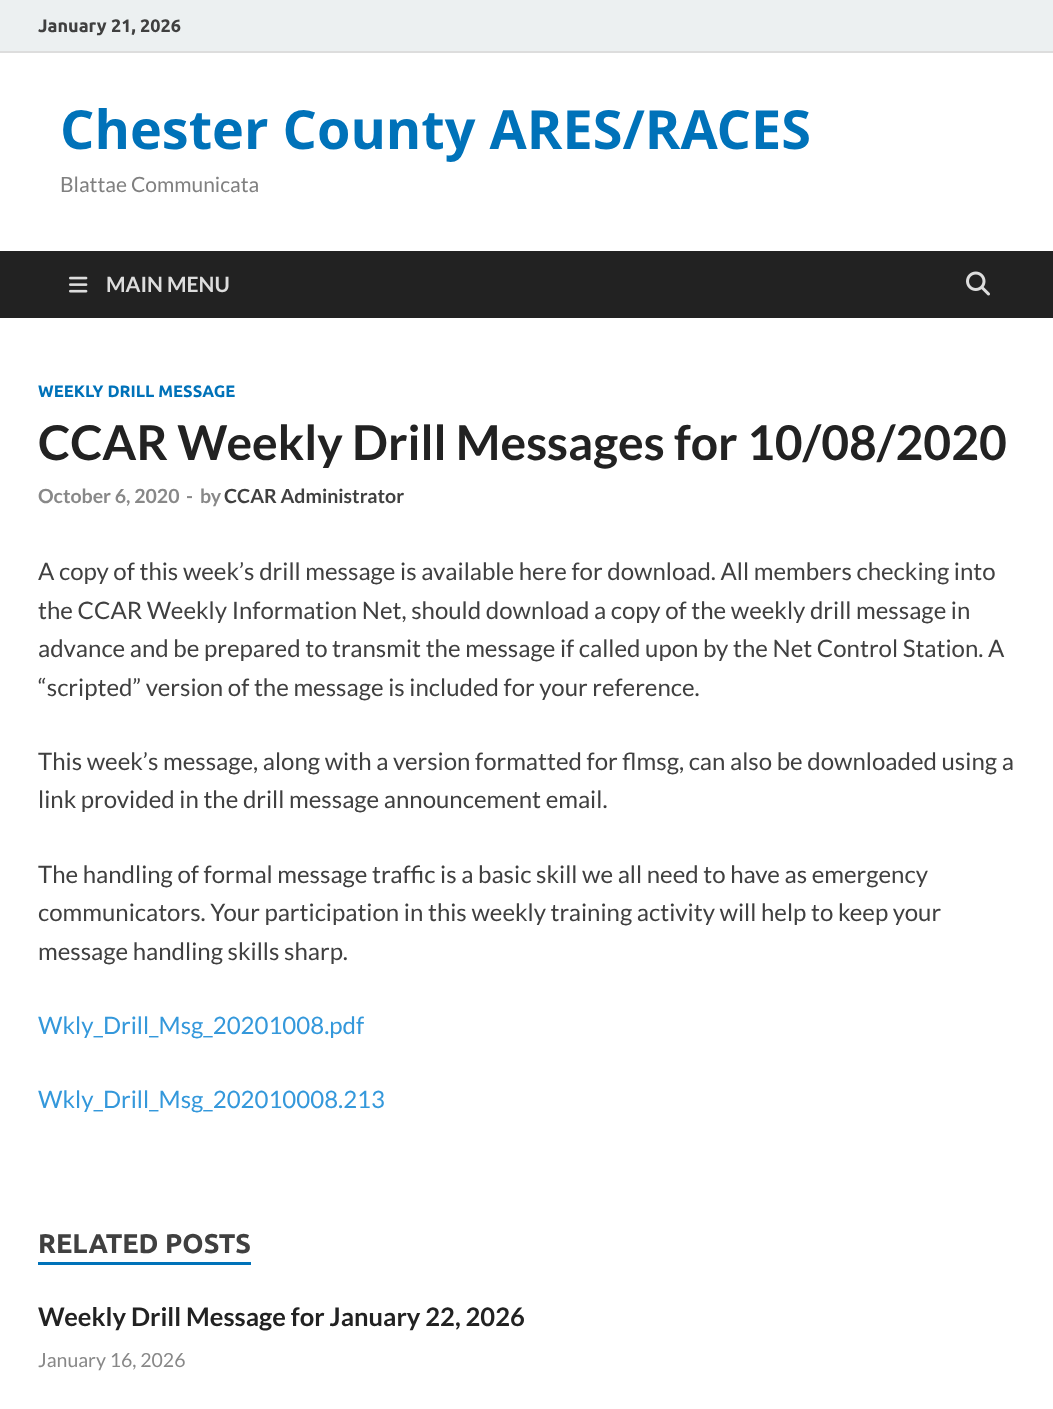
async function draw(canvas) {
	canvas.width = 1053;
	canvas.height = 1409;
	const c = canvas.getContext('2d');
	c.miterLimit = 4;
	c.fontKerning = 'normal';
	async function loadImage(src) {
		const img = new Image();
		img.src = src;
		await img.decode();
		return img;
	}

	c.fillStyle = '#fff';
	c.fillRect(0, 0, 1053, 1409);
	c.fillStyle = '#ecf0f1';
	c.fillRect(0, 0, 1053, 51);
	c.fillStyle = '#ddd';
	c.fillRect(0, 51, 1053, 2);
	c.font = 'bold 18px Ubuntu';
	c.fillStyle = '#404040';
	c.fillText('January 21, 2026', 38, 32);
	c.font = 'bold 54px Open Sans';
	c.fillStyle = '#0072b9';
	c.fillText('Chester County ARES/RACES', 60, 149);
	c.font = '21px Lato';
	c.fillStyle = '#808080';
	c.fillText('Blattae Communicata', 60, 192);
	c.fillStyle = '#222';
	c.fillRect(0, 251, 1053, 67);
	c.drawImage(await loadImage('img1.png'), 69, 276, 19, 17);
	c.font = 'bold 21px Lato';
	c.fillStyle = '#ddd';
	c.fillText('MAIN MENU', 106, 292);
	c.drawImage(await loadImage('img2.png'), 966, 271, 24, 25);
	c.font = 'bold 16.5px Ubuntu';
	c.fillStyle = '#0072b9';
	c.fillText('WEEKLY DRILL MESSAGE', 38, 397);
	c.font = 'bold 48px Lato';
	c.fillStyle = '#222';
	c.fillText('CCAR Weekly Drill Messages for 10/08/2020', 38, 460);
	c.font = 'bold 19.5px Lato';
	c.fillStyle = '#888';
	for (const [text, x, y] of [
		['October 6, 2020', 38, 503],
		['-', 186, 503],
		['by', 200, 503],
	]) {
		c.fillText(text, x, y);
	}
	c.fillStyle = '#404040';
	c.fillText('CCAR Administrator', 224, 503);
	c.font = '24px Lato';
	for (const [text, x, y] of [
		['A copy of this week’s drill message is available here for download. All members checking into', 38, 580],
		['the CCAR Weekly Information Net, should download a copy of the weekly drill message in', 38, 619],
		['advance and be prepared to transmit the message if called upon by the Net Control Station. A', 38, 657],
		['“scripted” version of the message is included for your reference.', 38, 696],
		['This week’s message, along with a version formatted for flmsg, can also be downloaded using a', 38, 770],
		['link provided in the drill message announcement email.', 38, 808],
		['The handling of formal message traffic is a basic skill we all need to have as emergency', 38, 883],
		['communicators. Your participation in this weekly training activity will help to keep your', 38, 921],
		['message handling skills sharp.', 38, 960],
	]) {
		c.fillText(text, x, y);
	}
	c.fillStyle = '#3498db';
	c.fillText('Wkly_Drill_Msg_20201008.pdf', 38, 1034);
	c.fillText('Wkly_Drill_Msg_202010008.213', 38, 1108);
	c.fillStyle = '#0072b9';
	c.fillRect(38, 1262, 213, 3);
	c.font = 'bold 27px Ubuntu';
	c.fillStyle = '#404040';
	c.fillText('RELATED POSTS', 38, 1253);
	c.font = 'bold 25.5px Lato';
	c.fillStyle = '#222';
	c.fillText('Weekly Drill Message for January 22, 2026', 38, 1326);
	c.font = '19.5px Lato';
	c.fillStyle = '#888';
	c.fillText('January 16, 2026', 38, 1367);
}

draw(document.querySelector('canvas'));
